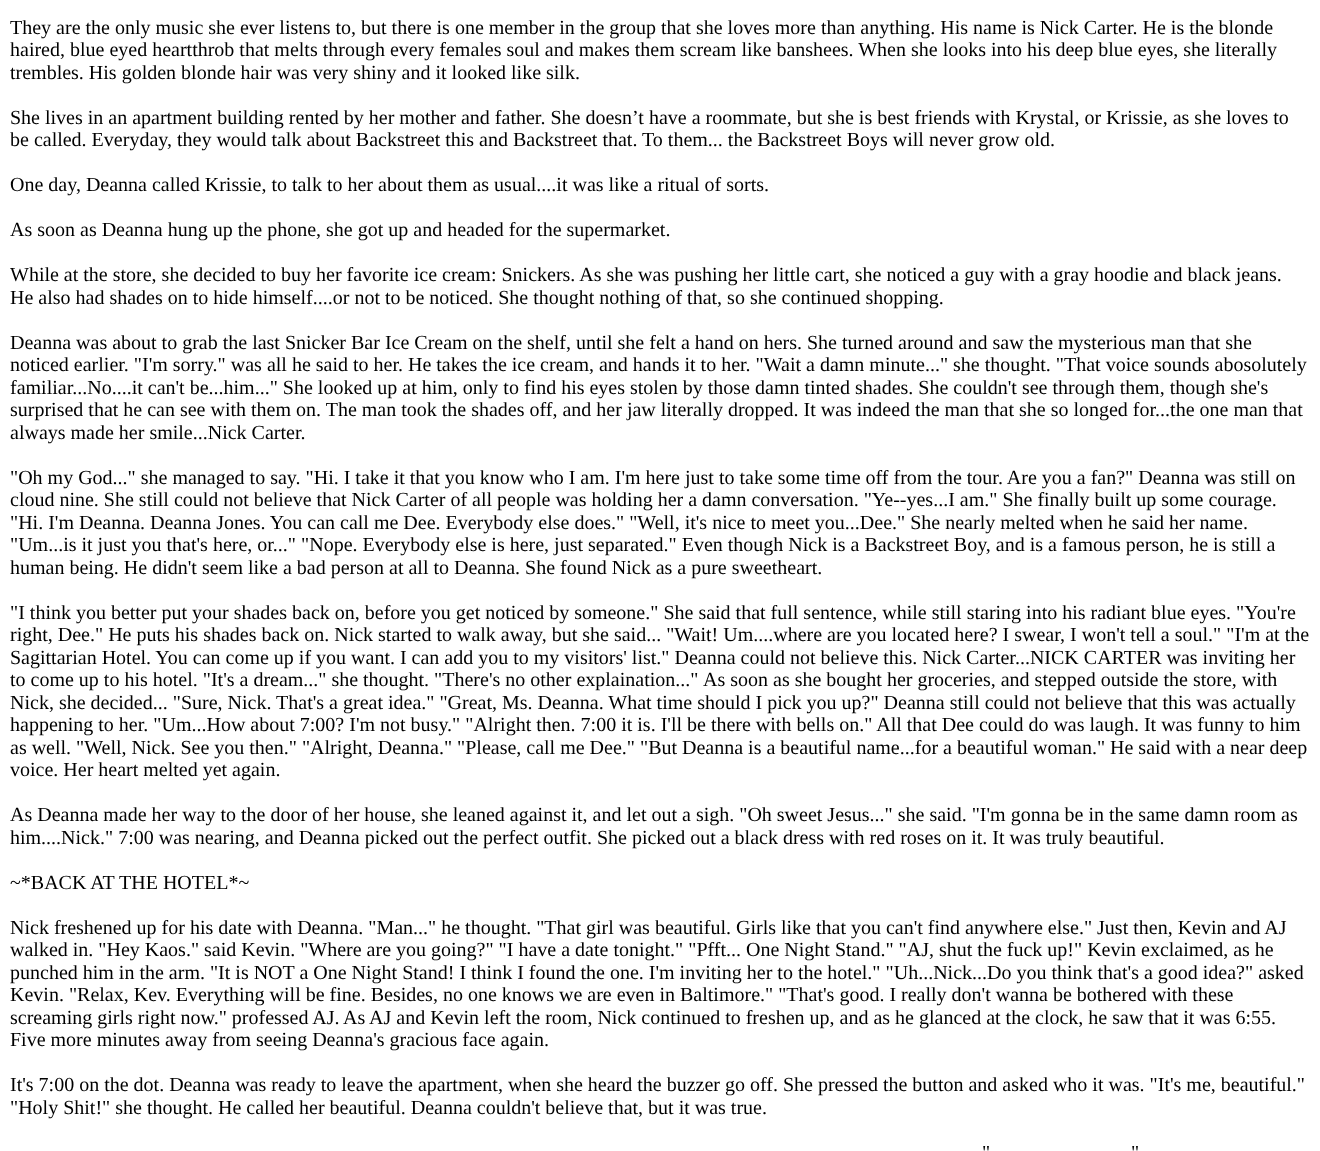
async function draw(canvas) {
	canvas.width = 1320;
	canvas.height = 1151;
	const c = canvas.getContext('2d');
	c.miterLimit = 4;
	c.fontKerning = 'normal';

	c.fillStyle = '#fff';
	c.fillRect(0, 0, 1320, 1151);
	c.font = '20px Liberation Serif';
	c.fillStyle = '#000';
	for (const [text, x, y] of [
		['They are the only music she ever listens to, but there is one member in the group that she loves more than anything. His name is Nick Carter. He is the blonde', 10, 34],
		['haired, blue eyed heartthrob that melts through every females soul and makes them scream like banshees. When she looks into his deep blue eyes, she literally', 10, 56],
		['trembles. His golden blonde hair was very shiny and it looked like silk.', 10, 79],
		['She lives in an apartment building rented by her mother and father. She doesn’t have a roommate, but she is best friends with Krystal, or Krissie, as she loves to', 10, 124],
		['be called. Everyday, they would talk about Backstreet this and Backstreet that. To them... the Backstreet Boys will never grow old.', 10, 146],
		['One day, Deanna called Krissie, to talk to her about them as usual....it was like a ritual of sorts.', 10, 191],
		['As soon as Deanna hung up the phone, she got up and headed for the supermarket.', 10, 236],
		['While at the store, she decided to buy her favorite ice cream: Snickers. As she was pushing her little cart, she noticed a guy with a gray hoodie and black jeans.', 10, 281],
		['He also had shades on to hide himself....or not to be noticed. She thought nothing of that, so she continued shopping.', 10, 304],
		['Deanna was about to grab the last Snicker Bar Ice Cream on the shelf, until she felt a hand on hers. She turned around and saw the mysterious man that she', 10, 349],
		['noticed earlier. "I\'m sorry." was all he said to her. He takes the ice cream, and hands it to her. "Wait a damn minute..." she thought. "That voice sounds abosolutely', 10, 371],
		['familiar...No....it can\'t be...him..." She looked up at him, only to find his eyes stolen by those damn tinted shades. She couldn\'t see through them, though she\'s', 10, 394],
		['surprised that he can see with them on. The man took the shades off, and her jaw literally dropped. It was indeed the man that she so longed for...the one man that', 10, 416],
		['always made her smile...Nick Carter.', 10, 439],
		['"Oh my God..." she managed to say. "Hi. I take it that you know who I am. I\'m here just to take some time off from the tour. Are you a fan?" Deanna was still on', 10, 484],
		['cloud nine. She still could not believe that Nick Carter of all people was holding her a damn conversation. "Ye--yes...I am." She finally built up some courage.', 10, 506],
		['"Hi. I\'m Deanna. Deanna Jones. You can call me Dee. Everybody else does." "Well, it\'s nice to meet you...Dee." She nearly melted when he said her name.', 10, 529],
		['"Um...is it just you that\'s here, or..." "Nope. Everybody else is here, just separated." Even though Nick is a Backstreet Boy, and is a famous person, he is still a', 10, 551],
		['human being. He didn\'t seem like a bad person at all to Deanna. She found Nick as a pure sweetheart.', 10, 574],
		['"I think you better put your shades back on, before you get noticed by someone." She said that full sentence, while still staring into his radiant blue eyes. "You\'re', 10, 619],
		['right, Dee." He puts his shades back on. Nick started to walk away, but she said... "Wait! Um....where are you located here? I swear, I won\'t tell a soul." "I\'m at the', 10, 641],
		['Sagittarian Hotel. You can come up if you want. I can add you to my visitors\' list." Deanna could not believe this. Nick Carter...NICK CARTER was inviting her', 10, 664],
		['to come up to his hotel. "It\'s a dream..." she', 10, 686],
		['thought. "There\'s no other explaination..."', 363, 686],
		['As soon as she bought her groceries, and stepped outside the store, with', 703, 686],
		['Nick, she decided... "Sure, Nick. That\'s a great idea." "Great, Ms. Deanna. What time should I pick you up?" Deanna still could not believe that this was actually', 10, 709],
		['happening to her. "Um...How about 7:00? I\'m not busy." "Alright then. 7:00 it is. I\'ll be there with bells on." All that Dee could do was laugh. It was funny to him', 10, 731],
		['as well. "Well, Nick. See you then." "Alright, Deanna." "Please, call me Dee." "But Deanna is a beautiful name...for a beautiful woman." He said with a near deep', 10, 754],
		['voice. Her heart melted yet again.', 10, 776],
		['As Deanna made her way to the door of her house, she leaned against it, and let out a sigh. "Oh sweet Jesus..." she said. "I\'m gonna be in the same damn room as', 10, 821],
		['him....Nick." 7:00 was nearing, and Deanna picked out the perfect outfit. She picked out a black dress with red roses on it. It was truly beautiful.', 10, 844],
		['~*BACK AT THE HOTEL*~', 10, 889],
		['Nick freshened up for his date with Deanna. "Man..." he thought. "That girl was beautiful. Girls like that you can\'t find anywhere else." Just then, Kevin and AJ', 10, 934],
		['walked in. "Hey Kaos." said Kevin. "Where are you going?" "I have a date tonight." "Pfft... One Night Stand." "AJ, shut the fuck up!" Kevin exclaimed, as he', 10, 956],
		['punched him in the arm. "It is NOT a One Night Stand! I think I found the one. I\'m inviting her to the hotel." "Uh...Nick...Do you think that\'s a good idea?" asked', 10, 979],
		['Kevin. "Relax, Kev. Everything will be fine. Besides, no one knows we are even in Baltimore." "That\'s good. I really don\'t wanna be bothered with these', 10, 1001],
		['screaming girls right now." professed AJ.', 10, 1024],
		['As AJ and Kevin left the room, Nick continued to freshen up, and as he glanced at the clock, he saw that it was 6:55.', 343, 1024],
		['Five more minutes away from seeing Deanna\'s gracious face again.', 10, 1046],
		['It\'s 7:00 on the dot. Deanna was ready to leave the apartment, when she heard the buzzer go off. She pressed the button and asked who it was. "It\'s me, beautiful."', 10, 1091],
		['"Holy Shit!" she thought. He called her beautiful. Deanna couldn\'t believe that, but it was true.', 10, 1114],
		['"', 982, 1159],
		['"', 1131, 1159],
	]) {
		c.fillText(text, x, y);
	}
}

draw(document.querySelector('canvas'));
